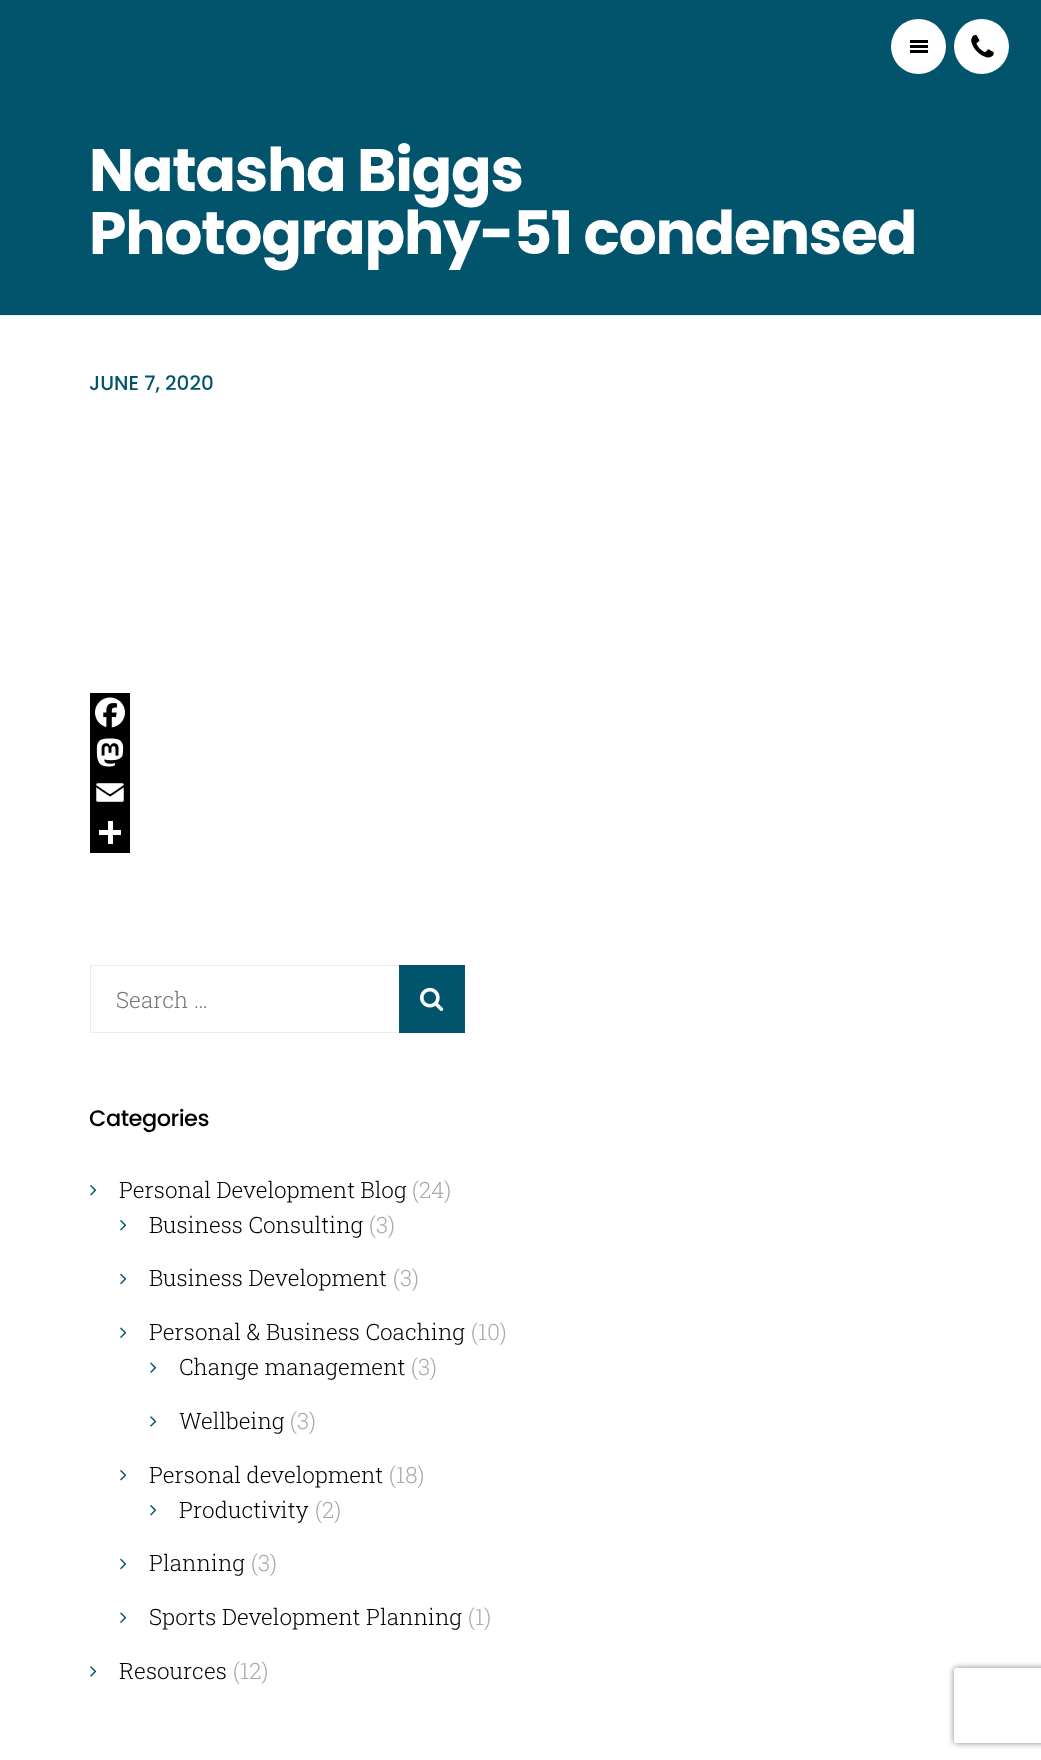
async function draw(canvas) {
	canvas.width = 1041;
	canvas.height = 1760;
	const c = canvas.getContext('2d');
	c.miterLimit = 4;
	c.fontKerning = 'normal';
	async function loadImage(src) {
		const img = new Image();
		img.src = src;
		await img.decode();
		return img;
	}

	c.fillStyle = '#fff';
	c.fillRect(0, 0, 1041, 1760);
	c.fillStyle = '#01546c';
	c.fillRect(0, 0, 1041, 315);
	c.fillStyle = '#fff';
	c.beginPath();
	c.arc(918.5, 46.5, 27.5, 0, 2 * Math.PI);
	c.fill();
	for (const [x, y, w, h, color] of [
		[910, 40, 18, 3, '#000'],
		[910, 45, 18, 3, '#000'],
		[910, 50, 18, 3, '#000'],
	]) {
		c.fillStyle = color;
		c.fillRect(x, y, w, h);
	}
	c.fillStyle = '#fff';
	c.beginPath();
	c.arc(981.5, 46.5, 27.5, 0, 2 * Math.PI);
	c.fill();
	c.drawImage(await loadImage('img1.png'), 971, 34, 23, 24);
	c.fillStyle = '#ededed';
	c.fillRect(0, 315, 1041, 1);
	c.letterSpacing = '-1.3px';
	c.font = 'bold 60px Poppins';
	c.fillStyle = '#fff';
	c.fillText('Natasha Biggs', 89, 191);
	c.fillText('Photography-51 condensed', 89, 254);
	c.letterSpacing = '0px';
	c.font = '500 20px Poppins';
	c.fillStyle = '#00546c';
	c.fillText('JUNE 7, 2020', 89, 390);
	c.fillStyle = '#000';
	c.fillRect(90, 693, 40, 160);
	c.drawImage(await loadImage('img2.png'), 95, 697, 30, 31);
	c.drawImage(await loadImage('img3.png'), 96, 738, 28, 29);
	c.drawImage(await loadImage('img4.png'), 96, 783, 28, 19);
	c.fillStyle = '#fff';
	c.fillRect(108, 821, 5, 23);
	c.fillRect(99, 830, 22, 5);
	c.strokeStyle = '#ededed';
	c.strokeRect(90.5, 965.5, 374, 67);
	c.font = '300 22.5px Roboto Slab';
	c.fillStyle = '#757575';
	c.fillText('Search …', 116, 1008);
	c.fillStyle = '#00546c';
	c.fillRect(399, 965, 66, 68);
	c.drawImage(await loadImage('img5.png'), 420, 987, 24, 25);
	c.letterSpacing = '-0.5px';
	c.font = '500 22.5px Poppins';
	c.fillStyle = '#000';
	c.fillText('Categories', 89, 1126);
	c.drawImage(await loadImage('img6.png'), 90, 1185, 7, 11);
	c.letterSpacing = '0px';
	c.font = '300 22.5px Roboto Slab';
	c.fillText('Personal Development Blog', 119, 1198);
	c.fillStyle = '#a8a9ab';
	c.fillText('(24)', 412, 1198);
	c.drawImage(await loadImage('img6.png'), 120, 1220, 7, 11);
	c.fillStyle = '#000';
	c.fillText('Business Consulting', 149, 1233);
	c.fillStyle = '#a8a9ab';
	c.fillText('(3)', 369, 1233);
	c.drawImage(await loadImage('img7.png'), 120, 1273, 7, 12);
	c.fillStyle = '#000';
	c.fillText('Business Development', 149, 1286);
	c.fillStyle = '#a8a9ab';
	c.fillText('(3)', 393, 1286);
	c.drawImage(await loadImage('img8.png'), 120, 1327, 7, 11);
	c.fillStyle = '#000';
	c.fillText('Personal & Business Coaching', 149, 1340);
	c.fillStyle = '#a8a9ab';
	c.fillText('(10)', 471, 1340);
	c.drawImage(await loadImage('img8.png'), 150, 1362, 7, 11);
	c.fillStyle = '#000';
	c.fillText('Change management', 179, 1375);
	c.fillStyle = '#a8a9ab';
	c.fillText('(3)', 411, 1375);
	c.drawImage(await loadImage('img9.png'), 150, 1416, 7, 11);
	c.fillStyle = '#000';
	c.fillText('Wellbeing', 179, 1429);
	c.fillStyle = '#a8a9ab';
	c.fillText('(3)', 290, 1429);
	c.drawImage(await loadImage('img6.png'), 120, 1470, 7, 11);
	c.fillStyle = '#000';
	c.fillText('Personal development', 149, 1483);
	c.fillStyle = '#a8a9ab';
	c.fillText('(18)', 389, 1483);
	c.drawImage(await loadImage('img6.png'), 150, 1505, 7, 11);
	c.fillStyle = '#000';
	c.fillText('Productivity', 179, 1518);
	c.fillStyle = '#a8a9ab';
	c.fillText('(2)', 315, 1518);
	c.drawImage(await loadImage('img7.png'), 120, 1558, 7, 12);
	c.fillStyle = '#000';
	c.fillText('Planning', 149, 1571);
	c.fillStyle = '#a8a9ab';
	c.fillText('(3)', 251, 1571);
	c.drawImage(await loadImage('img8.png'), 120, 1612, 7, 11);
	c.fillStyle = '#000';
	c.fillText('Sports Development Planning', 149, 1625);
	c.fillStyle = '#a8a9ab';
	c.fillText('(1)', 468, 1625);
	c.drawImage(await loadImage('img9.png'), 90, 1666, 7, 11);
	c.fillStyle = '#000';
	c.fillText('Resources', 119, 1679);
	c.fillStyle = '#a8a9ab';
	c.fillText('(12)', 233, 1679);
	c.save();
	c.beginPath();
	c.moveTo(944, 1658);
	c.lineTo(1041, 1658);
	c.lineTo(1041, 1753);
	c.lineTo(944, 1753);
	c.closePath();
	c.moveTo(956.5, 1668);
	c.lineTo(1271.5, 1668);
	c.bezierCurveTo(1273, 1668, 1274, 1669, 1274, 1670.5);
	c.lineTo(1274, 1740.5);
	c.bezierCurveTo(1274, 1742, 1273, 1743, 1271.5, 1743);
	c.lineTo(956.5, 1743);
	c.bezierCurveTo(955, 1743, 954, 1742, 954, 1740.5);
	c.lineTo(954, 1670.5);
	c.bezierCurveTo(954, 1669, 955, 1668, 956.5, 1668);
	c.closePath();
	c.clip('evenodd');
	c.fillStyle = '#808080';
	c.filter = 'blur(3px)';
	c.beginPath();
	c.roundRect(954, 1668, 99, 75, 2.5);
	c.fill();
	c.filter = 'none';
	c.restore();
}

draw(document.querySelector('canvas'));
